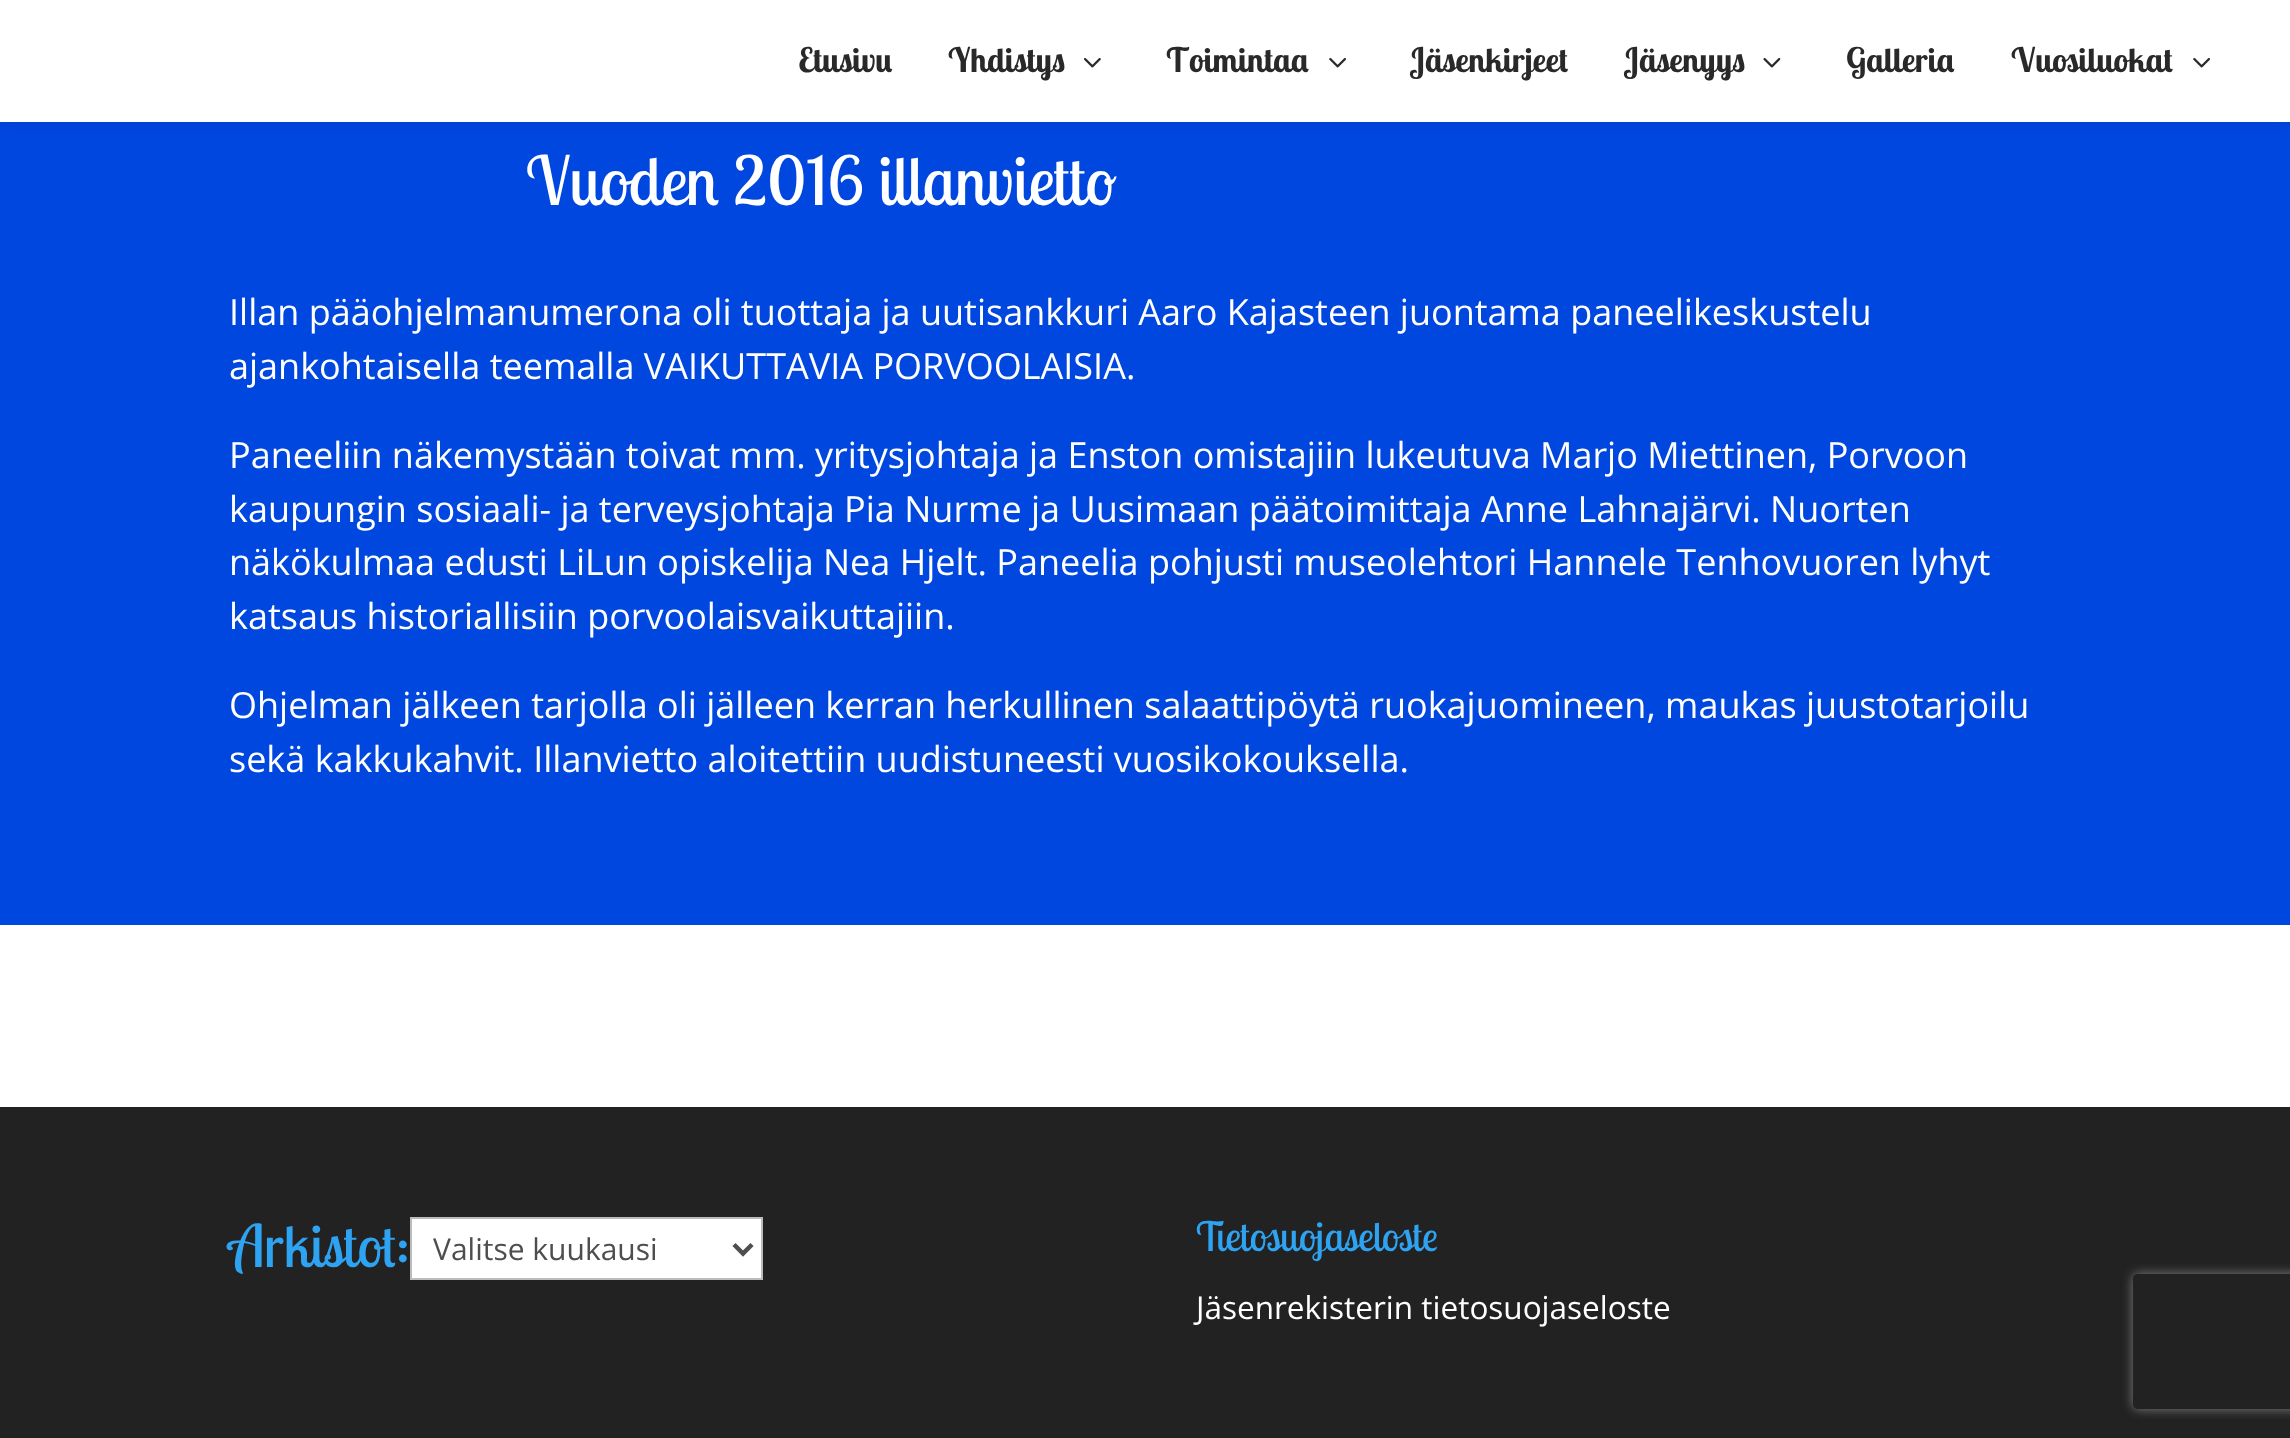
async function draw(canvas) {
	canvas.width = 2290;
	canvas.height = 1438;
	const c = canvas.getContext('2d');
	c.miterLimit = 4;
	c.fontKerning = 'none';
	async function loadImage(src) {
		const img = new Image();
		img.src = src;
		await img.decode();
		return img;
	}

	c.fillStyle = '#fff';
	c.fillRect(0, 0, 2290, 1438);
	c.fillStyle = '#0047e0';
	c.fillRect(0, 122, 2290, 803);
	c.fillStyle = '#0000001a';
	c.filter = 'blur(8px)';
	c.beginPath();
	c.rect(0, 0, 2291, 122);
	c.fill();
	c.filter = 'none';
	c.fillStyle = '#fff';
	c.fillRect(0, 0, 2290, 122);
	c.font = 'bold 33.75px Lobster Two';
	c.fillStyle = '#292929';
	c.fillText('Etusivu', 798, 72);
	c.fillText('Yhdistys', 948, 72);
	c.drawImage(await loadImage('img1.png'), 1084, 58, 17, 10);
	c.fillText('Toimintaa', 1166, 72);
	c.drawImage(await loadImage('img2.png'), 1329, 58, 17, 10);
	c.fillText('Jäsenkirjeet', 1410, 72);
	c.fillText('Jäsenyys', 1624, 72);
	c.drawImage(await loadImage('img3.png'), 1763, 58, 18, 10);
	c.fillText('Galleria', 1846, 72);
	c.fillText('Vuosiluokat', 2011, 72);
	c.drawImage(await loadImage('img2.png'), 2193, 58, 17, 10);
	c.font = '67.5px Lobster Two';
	c.fillStyle = '#fff';
	c.fillText('Vuoden 2016 illanvietto', 526, 205);
	c.font = '36px Open Sans';
	for (const [text, x, y] of [
		['Illan pääohjelmanumerona oli tuottaja ja uutisankkuri Aaro Kajasteen juontama paneelikeskustelu', 229, 325],
		['ajankohtaisella teemalla VAIKUTTAVIA PORVOOLAISIA.', 229, 379],
		['Paneeliin näkemystään toivat mm. yritysjohtaja ja Enston omistajiin lukeutuva Marjo Miettinen, Porvoon', 229, 468],
		['kaupungin sosiaali- ja terveysjohtaja Pia Nurme ja Uusimaan päätoimittaja Anne Lahnajärvi. Nuorten', 229, 522],
		['näkökulmaa edusti LiLun opiskelija Nea Hjelt. Paneelia pohjusti museolehtori Hannele Tenhovuoren lyhyt', 229, 575],
		['katsaus historiallisiin porvoolaisvaikuttajiin.', 229, 629],
		['Ohjelman jälkeen tarjolla oli jälleen kerran herkullinen salaattipöytä ruokajuomineen, maukas juustotarjoilu', 229, 718],
		['sekä kakkukahvit. Illanvietto aloitettiin uudistuneesti vuosikokouksella.', 229, 772],
	]) {
		c.fillText(text, x, y);
	}
	c.fillStyle = '#222';
	c.fillRect(0, 1107, 2290, 331);
	c.font = '58.5px Lobster Two';
	c.fillStyle = '#2ea3f2';
	c.fillText('Arkistot:', 229, 1267);
	c.fillStyle = '#fff';
	c.beginPath();
	c.rect(411, 1218, 351, 61);
	c.fill();
	c.strokeStyle = '#bbb';
	c.lineWidth = 2;
	c.stroke();
	c.beginPath();
	c.moveTo(734, 1244.5);
	c.lineTo(743, 1253.5);
	c.lineTo(752, 1244.5);
	c.strokeStyle = '#4e4e4e';
	c.lineWidth = 4.5;
	c.stroke();
	c.font = '30px Open Sans';
	c.fillStyle = '#4e4e4e';
	c.fillText('Valitse kuukausi', 433, 1260);
	c.font = '40.5px Lobster Two';
	c.fillStyle = '#2ea3f2';
	c.fillText('Tietosuojaseloste', 1196, 1251);
	c.font = '31.5px Open Sans';
	c.fillStyle = '#fff';
	c.fillText('Jäsenrekisterin tietosuojaseloste', 1196, 1319);
	c.save();
	c.beginPath();
	c.moveTo(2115, 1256);
	c.lineTo(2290, 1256);
	c.lineTo(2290, 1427);
	c.lineTo(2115, 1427);
	c.closePath();
	c.moveTo(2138, 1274);
	c.lineTo(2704, 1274);
	c.bezierCurveTo(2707, 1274, 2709, 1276, 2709, 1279);
	c.lineTo(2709, 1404);
	c.bezierCurveTo(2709, 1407, 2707, 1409, 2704, 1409);
	c.lineTo(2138, 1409);
	c.bezierCurveTo(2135, 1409, 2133, 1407, 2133, 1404);
	c.lineTo(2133, 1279);
	c.bezierCurveTo(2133, 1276, 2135, 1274, 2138, 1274);
	c.closePath();
	c.clip('evenodd');
	c.fillStyle = '#808080';
	c.filter = 'blur(5.5px)';
	c.beginPath();
	c.roundRect(2133, 1274, 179, 135, 5);
	c.fill();
	c.filter = 'none';
	c.restore();
}

draw(document.querySelector('canvas'));
